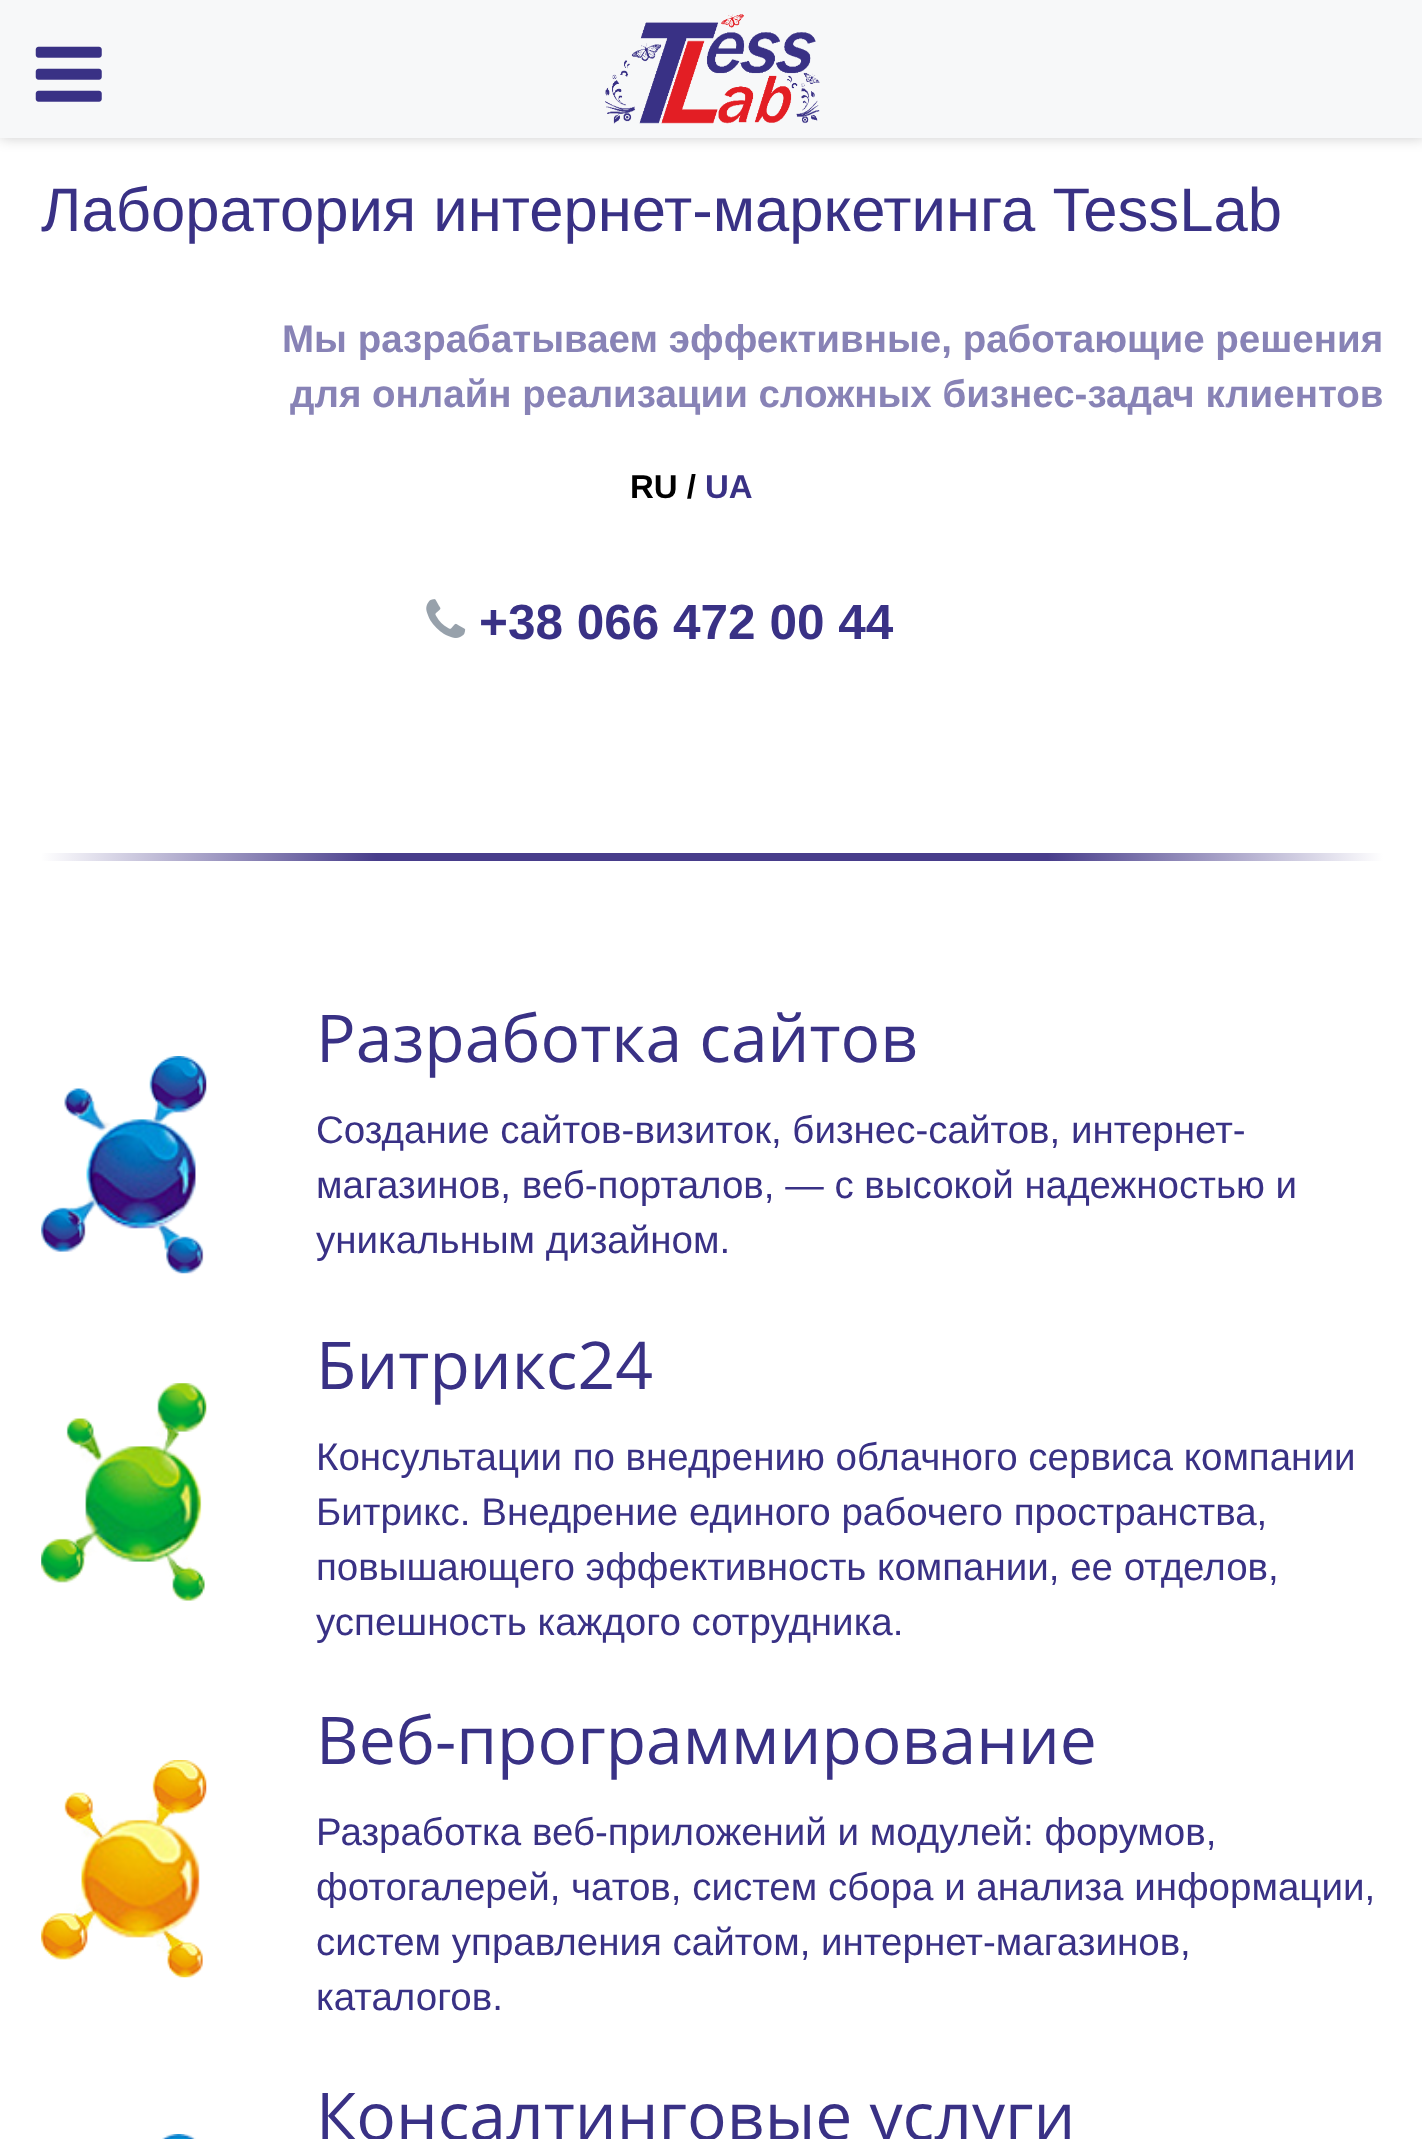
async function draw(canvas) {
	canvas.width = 1422;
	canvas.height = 2139;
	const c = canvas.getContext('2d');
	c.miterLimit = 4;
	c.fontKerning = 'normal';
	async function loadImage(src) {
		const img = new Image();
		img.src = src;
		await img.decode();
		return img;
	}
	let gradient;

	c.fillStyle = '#fff';
	c.fillRect(0, 0, 1422, 2139);
	c.fillStyle = '#00000033';
	c.filter = 'blur(7px)';
	c.beginPath();
	c.rect(0, 0, 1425, 138);
	c.fill();
	c.filter = 'none';
	c.fillStyle = '#f7f8f9';
	c.fillRect(0, 0, 1422, 138);
	c.drawImage(await loadImage('img1.png'), 35, 46, 67, 56);
	c.drawImage(await loadImage('img2.png'), 605, 14, 215, 110);
	c.font = '61.6px Liberation Sans';
	c.fillStyle = '#393185';
	c.fillText('Лаборатория интернет-маркетинга TessLab', 41, 231);
	c.font = 'bold 38.5px Liberation Sans';
	c.fillStyle = '#8883b6';
	c.fillText('Мы разрабатываем эффективные, работающие решения', 282, 352);
	c.fillText('для онлайн реализации сложных бизнес-задач клиентов', 290, 407);
	c.font = 'bold 33px Liberation Sans';
	c.fillStyle = '#000';
	c.fillText('RU /', 630, 498);
	c.fillStyle = '#393185';
	c.fillText('UA', 705, 498);
	c.drawImage(await loadImage('img3.png'), 426, 599, 40, 39);
	c.font = 'bold 49.5px Liberation Sans';
	c.fillText('+38 066 472 00 44', 479, 639);
	gradient = c.createRadialGradient(712, 857, 0, 712, 857, 671);
	gradient.addColorStop(0.5, '#483d8b');
	gradient.addColorStop(1, '#fff');
	c.fillStyle = gradient;
	c.fillRect(41, 853, 1342, 8);
	c.drawImage(await loadImage('img4.png'), 41, 1056, 166, 218);
	c.font = '66px Open Sans';
	c.fillStyle = '#393185';
	c.fillText('Разработка сайтов', 316, 1062);
	c.font = '38.5px Liberation Sans';
	for (const [text, x, y] of [
		['Создание сайтов-визиток, бизнес-сайтов, интернет-', 316, 1143],
		['магазинов, веб-порталов, — с высокой надежностью и', 316, 1198],
		['уникальным дизайном.', 316, 1253],
	]) {
		c.fillText(text, x, y);
	}
	c.drawImage(await loadImage('img5.png'), 41, 1383, 166, 218);
	c.font = '66px Open Sans';
	c.fillText('Битрикс24', 316, 1389);
	c.font = '38.5px Liberation Sans';
	for (const [text, x, y] of [
		['Консультации по внедрению облачного сервиса компании', 316, 1470],
		['Битрикс. Внедрение единого рабочего пространства,', 316, 1525],
		['повышающего эффективность компании, ее отделов,', 316, 1580],
		['успешность каждого сотрудника.', 316, 1635],
	]) {
		c.fillText(text, x, y);
	}
	c.drawImage(await loadImage('img6.png'), 41, 1760, 166, 218);
	c.font = '66px Open Sans';
	c.fillText('Веб-программирование', 316, 1764);
	c.font = '38.5px Liberation Sans';
	for (const [text, x, y] of [
		['Разработка веб-приложений и модулей: форумов,', 316, 1845],
		['фотогалерей, чатов, систем сбора и анализа информации,', 316, 1900],
		['систем управления сайтом, интернет-магазинов,', 316, 1955],
		['каталогов.', 316, 2010],
	]) {
		c.fillText(text, x, y);
	}
	c.drawImage(await loadImage('img7.png'), 162, 2134, 34, 5);
	c.font = '66px Open Sans';
	c.fillText('Консалтинговые услуги', 316, 2140);
}

draw(document.querySelector('canvas'));
